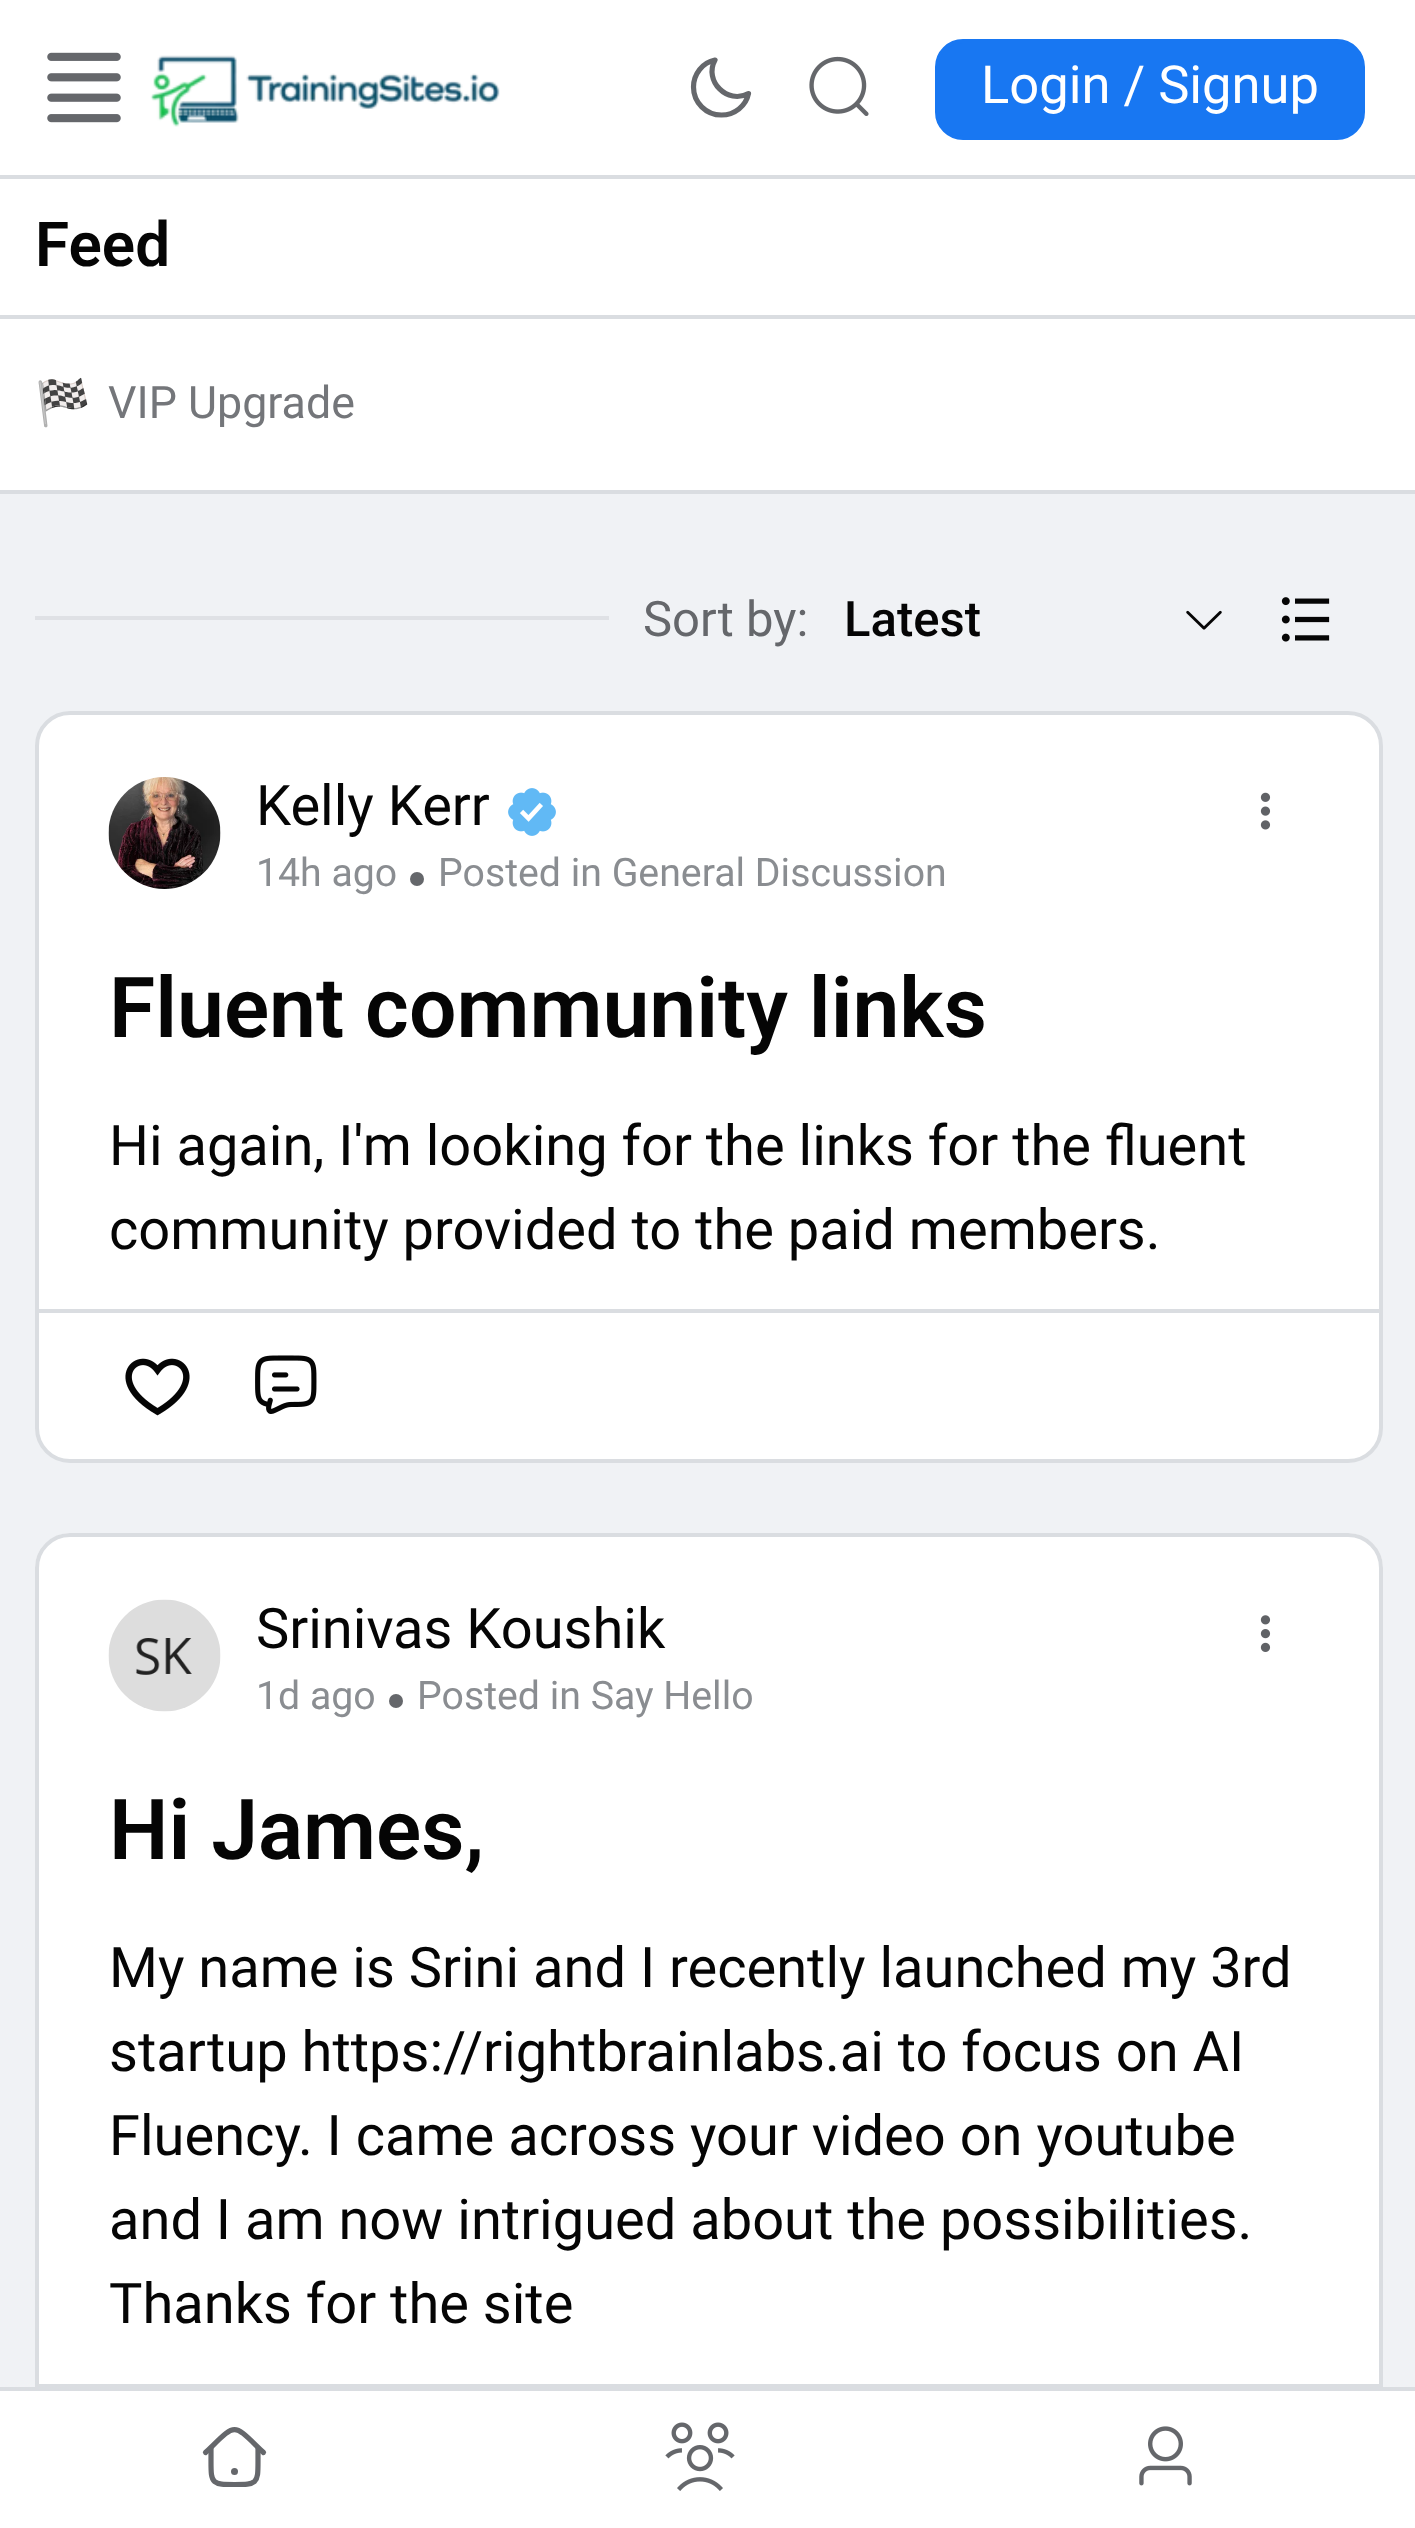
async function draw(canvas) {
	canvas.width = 1415;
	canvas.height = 2528;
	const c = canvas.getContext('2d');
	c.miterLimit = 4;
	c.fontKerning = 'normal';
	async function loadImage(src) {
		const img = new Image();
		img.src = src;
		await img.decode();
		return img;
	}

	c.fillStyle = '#f0f2f5';
	c.fillRect(0, 0, 1415, 2528);
	c.fillStyle = '#fff';
	c.fillRect(0, 0, 1415, 175);
	c.fillStyle = '#dadde1';
	c.fillRect(0, 175, 1415, 4);
	c.drawImage(await loadImage('img1.png'), 47, 52, 74, 71);
	c.drawImage(await loadImage('img2.png'), 150, 55, 350, 72);
	c.beginPath();
	c.moveTo(748.5, 93.5);
	c.bezierCurveTo(727.5, 105, 703.5, 81, 715, 60);
	c.bezierCurveTo(702.5, 62.5, 693.5, 74, 693.5, 87);
	c.bezierCurveTo(693.5, 102.5, 706, 115, 721.5, 115);
	c.bezierCurveTo(734.5, 115, 746, 106, 748.5, 93.5);
	c.closePath();
	c.strokeStyle = '#65676b';
	c.lineWidth = 5.2;
	c.lineCap = 'round';
	c.lineJoin = 'round';
	c.stroke();
	c.drawImage(await loadImage('img3.png'), 809, 56, 60, 60);
	c.fillStyle = '#1877f2';
	c.beginPath();
	c.roundRect(937, 41, 426, 97, 26);
	c.fill();
	c.strokeStyle = '#1877f2';
	c.lineWidth = 4;
	c.lineJoin = 'miter';
	c.stroke();
	c.font = '52.5px Roboto';
	c.fillStyle = '#fff';
	c.fillText('Login / Signup', 981, 103);
	c.fillRect(0, 179, 1415, 136);
	c.fillStyle = '#dadde1';
	c.fillRect(0, 315, 1415, 4);
	c.font = '600 62px Roboto';
	c.fillStyle = '#050505';
	c.fillText('Feed', 35, 266);
	c.fillStyle = '#fff';
	c.fillRect(0, 319, 1415, 171);
	c.fillStyle = '#dadde1';
	c.fillRect(0, 490, 1415, 4);
	c.font = '44.75px Noto Color Emoji';
	c.fillStyle = '#74767a';
	c.fillText('🏁', 35, 418);
	c.font = '44.75px Roboto';
	c.fillText('VIP Upgrade', 108, 418);
	c.fillStyle = '#dfe1e5';
	c.fillRect(35, 616, 574, 4);
	c.font = '49px Roboto';
	c.fillStyle = '#65676b';
	c.fillText('Sort by:', 643, 636);
	c.font = '500 49px Roboto';
	c.fillStyle = '#050505';
	c.fillText('Latest', 844, 636);
	c.drawImage(await loadImage('img4.png'), 1186, 610, 36, 20);
	c.drawImage(await loadImage('img5.png'), 1281, 597, 49, 45);
	c.fillStyle = '#fff';
	c.beginPath();
	c.roundRect(37, 713, 1344, 748, 33);
	c.fill();
	c.strokeStyle = '#dadde1';
	c.stroke();
	c.drawImage(await loadImage('img6.png'), 108, 777, 113, 112);
	c.font = '56px Roboto';
	c.fillStyle = '#050505';
	c.fillText('Kelly Kerr', 256, 825);
	c.drawImage(await loadImage('img7.png'), 508, 788, 48, 48);
	c.font = '39.25px Roboto';
	c.fillStyle = '#8a8d91';
	c.fillText('14h ago', 256, 886);
	c.fillStyle = '#65676b';
	c.beginPath();
	c.arc(417, 879, 7, 0, 2 * Math.PI);
	c.fill();
	c.fillStyle = '#8a8d91';
	c.fillText('Posted in General Discussion', 438, 886);
	c.drawImage(await loadImage('img8.png'), 1260, 792, 11, 38);
	c.fillStyle = '#dadde1';
	c.fillRect(39, 1309, 1340, 4);
	c.font = '600 84px Roboto';
	c.fillStyle = '#050505';
	c.fillText('Fluent community links', 109, 1037);
	c.font = '56px Roboto';
	c.fillText('Hi again, I\'m looking for the links for the fluent', 109, 1165);
	c.fillText('community provided to the paid members.', 109, 1249);
	c.drawImage(await loadImage('img9.png'), 125, 1358, 65, 58);
	c.drawImage(await loadImage('img10.png'), 255, 1355, 62, 59);
	c.fillStyle = '#fff';
	c.beginPath();
	c.roundRect(35, 1533, 1348, 980, [35, 35, 0, 0]);
	c.fill();
	c.beginPath();
	c.roundRect(37, 1535, 1344, 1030, 33);
	c.stroke();
	c.drawImage(await loadImage('img11.png'), 108, 1599, 113, 113);
	c.fillStyle = '#050505';
	c.fillText('Srinivas Koushik', 256, 1648);
	c.font = '39.25px Roboto';
	c.fillStyle = '#8a8d91';
	c.fillText('1d ago', 256, 1709);
	c.fillStyle = '#65676b';
	c.beginPath();
	c.arc(396, 1701, 7, 0, 2 * Math.PI);
	c.fill();
	c.fillStyle = '#8a8d91';
	c.fillText('Posted in Say Hello', 417, 1709);
	c.drawImage(await loadImage('img12.png'), 1260, 1615, 11, 37);
	c.fillStyle = '#dadde1';
	c.fillRect(39, 2384, 1340, 3);
	c.font = '600 84px Roboto';
	c.fillStyle = '#050505';
	c.fillText('Hi James,', 109, 1859);
	c.font = '56px Roboto';
	for (const [text, x, y] of [
		['My name is Srini and I recently launched my 3rd', 109, 1987],
		['startup https://rightbrainlabs.ai to focus on AI', 109, 2071],
		['Fluency. I came across your video on youtube', 109, 2155],
		['and I am now intrigued about the possibilities.', 109, 2239],
		['Thanks for the site', 109, 2323],
	]) {
		c.fillText(text, x, y);
	}
	c.fillStyle = '#fff';
	c.fillRect(0, 2391, 1415, 137);
	c.fillStyle = '#dadde1';
	c.fillRect(0, 2387, 1415, 4);
	c.beginPath();
	c.moveTo(234.5, 2471.5);
	c.lineTo(234.5, 2471.5);
	c.strokeStyle = '#65676b';
	c.lineWidth = 7;
	c.lineJoin = 'round';
	c.stroke();
	c.beginPath();
	c.moveTo(258, 2447);
	c.lineTo(258, 2461.5);
	c.bezierCurveTo(258, 2472.5, 258, 2478, 254.5, 2481.5);
	c.bezierCurveTo(251, 2484.5, 245.5, 2484.5, 234.5, 2484.5);
	c.bezierCurveTo(223.5, 2484.5, 218, 2484.5, 214.5, 2481.5);
	c.bezierCurveTo(211, 2478, 211, 2472.5, 211, 2461.5);
	c.lineTo(211, 2447);
	c.lineWidth = 5.2;
	c.lineCap = 'butt';
	c.lineJoin = 'miter';
	c.stroke();
	c.beginPath();
	c.moveTo(263.5, 2452.5);
	c.bezierCurveTo(231.5, 2422, 237.5, 2422, 205.5, 2452.5);
	c.lineCap = 'round';
	c.stroke();
	c.drawImage(await loadImage('img13.png'), 665, 2422, 70, 69);
	c.drawImage(await loadImage('img14.png'), 1139, 2426, 53, 60);
}

draw(document.querySelector('canvas'));
